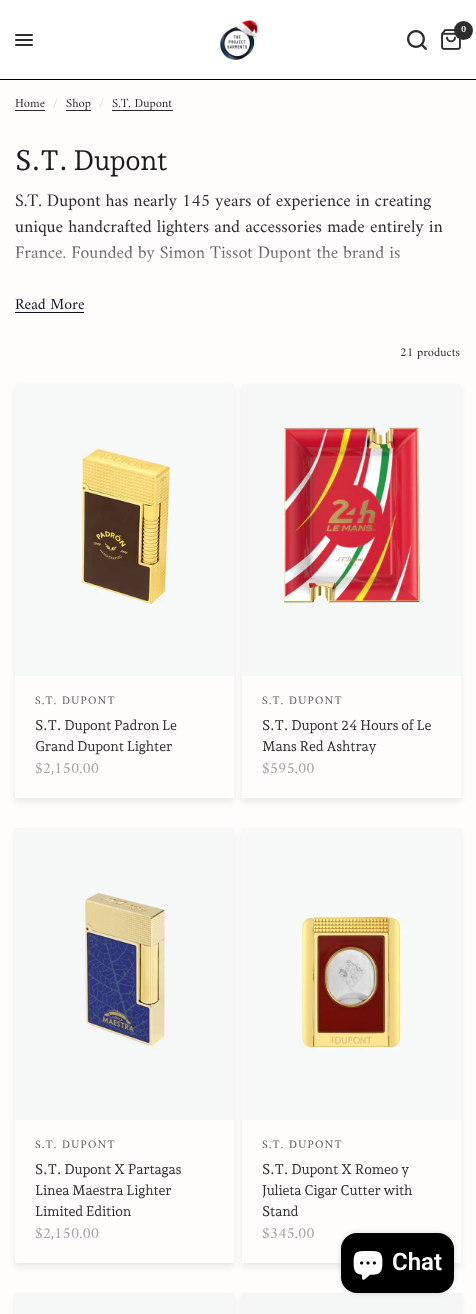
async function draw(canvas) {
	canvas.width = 476;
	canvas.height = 1314;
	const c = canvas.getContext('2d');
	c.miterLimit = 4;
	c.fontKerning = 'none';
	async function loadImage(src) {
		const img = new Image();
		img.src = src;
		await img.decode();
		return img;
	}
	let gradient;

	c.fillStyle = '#fffcfc';
	c.fillRect(0, 0, 476, 1314);
	c.fillStyle = '#fff';
	c.fillRect(0, 0, 476, 79);
	c.drawImage(await loadImage('img1.png'), 219, 20, 39, 40);
	c.drawImage(await loadImage('img2.png'), 441, 29, 20, 21);
	c.fillStyle = '#2c2d2e';
	c.beginPath();
	c.arc(463.5, 30.5, 9.5, 0, 2 * Math.PI);
	c.fill();
	c.font = 'bold 10px Amiri';
	c.fillStyle = '#fff';
	c.fillText('0', 461, 32);
	c.drawImage(await loadImage('img3.png'), 407, 30, 20, 20);
	c.fillStyle = '#2c2d2e';
	c.beginPath();
	c.roundRect(15, 34, 18, 2, 1);
	c.fill();
	c.beginPath();
	c.roundRect(15, 39, 18, 2, 1);
	c.fill();
	c.beginPath();
	c.roundRect(15, 44, 18, 2, 1);
	c.fill();
	c.fillStyle = '#000';
	c.fillRect(0, 79, 476, 1);
	c.font = '12.5px Amiri';
	c.fillStyle = '#2c2d2e';
	c.fillText('Home', 15, 107);
	c.fillRect(15, 110, 30, 1);
	c.font = 'italic 12.5px Amiri';
	c.fillStyle = '#d5d3d3';
	c.fillText('/', 53, 107);
	c.font = '12.5px Amiri';
	c.fillStyle = '#2c2d2e';
	c.fillText('Shop', 66, 107);
	c.fillRect(66, 110, 25, 1);
	c.font = 'italic 12.5px Amiri';
	c.fillStyle = '#d5d3d3';
	c.fillText('/', 99, 107);
	c.font = '12.5px Amiri';
	c.fillStyle = '#2c2d2e';
	c.fillText('S.T. Dupont', 112, 107);
	c.fillRect(112, 110, 61, 1);
	c.letterSpacing = '-0.5px';
	c.font = '28px Andada Pro';
	c.fillStyle = '#1a1c1d';
	c.fillText('S.T. Dupont', 15, 170);
	c.letterSpacing = '0px';
	c.wordSpacing = '-0.25px';
	c.font = '17.85px Amiri';
	c.fillStyle = '#2c2d2e';
	c.fillText('S.T. Dupont has nearly 145 years of experience in creating', 15, 206);
	c.wordSpacing = '0px';
	c.fillText('unique handcrafted lighters and accessories made entirely in', 15, 232);
	c.wordSpacing = '-0.25px';
	c.fillText('France. Founded by Simon Tissot Dupont the brand is', 15, 258);
	gradient = c.createLinearGradient(238, 236, 238, 286);
	gradient.addColorStop(0.1, '#fffcfc00');
	gradient.addColorStop(0.9, '#fffcfc');
	c.fillStyle = gradient;
	c.fillRect(15, 246, 386, 16);
	c.wordSpacing = '0px';
	c.font = '15.75px Amiri';
	c.fillStyle = '#0a1224';
	c.fillText('Read More', 15, 309);
	c.fillRect(15, 312, 69, 1);
	c.font = '12.5px Amiri';
	c.fillStyle = '#2c2d2e';
	c.fillText('21 products', 400, 356);
	c.save();
	c.beginPath();
	c.moveTo(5, 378);
	c.lineTo(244, 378);
	c.lineTo(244, 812);
	c.lineTo(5, 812);
	c.closePath();
	c.moveTo(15, 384);
	c.lineTo(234, 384);
	c.lineTo(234, 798);
	c.lineTo(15, 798);
	c.closePath();
	c.clip('evenodd');
	c.fillStyle = '#00000014';
	c.filter = 'blur(3px)';
	c.beginPath();
	c.rect(15, 388, 219, 414);
	c.fill();
	c.filter = 'none';
	c.restore();
	c.drawImage(await loadImage('img4.png'), 15, 384, 219, 292);
	c.letterSpacing = '1.25px';
	c.font = '11.5px Amiri';
	c.fillStyle = '#565657';
	c.fillText('S.T. DUPONT', 35, 704);
	c.letterSpacing = '-0.25px';
	c.font = '14px Andada Pro';
	c.fillStyle = '#2c2d2e';
	c.fillText('S.T. Dupont Padron Le', 35, 730);
	c.fillText('Grand Dupont Lighter', 35, 751);
	c.letterSpacing = '0px';
	c.font = '15.75px Amiri';
	c.fillStyle = '#9fa3a7';
	c.fillText('$2,150.00', 35, 773);
	c.save();
	c.beginPath();
	c.moveTo(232, 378);
	c.lineTo(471, 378);
	c.lineTo(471, 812);
	c.lineTo(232, 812);
	c.closePath();
	c.moveTo(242, 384);
	c.lineTo(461, 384);
	c.lineTo(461, 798);
	c.lineTo(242, 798);
	c.closePath();
	c.clip('evenodd');
	c.fillStyle = '#00000014';
	c.filter = 'blur(3px)';
	c.beginPath();
	c.rect(242, 388, 219, 414);
	c.fill();
	c.filter = 'none';
	c.restore();
	c.drawImage(await loadImage('img5.png'), 242, 384, 219, 292);
	c.letterSpacing = '1.25px';
	c.font = '11.5px Amiri';
	c.fillStyle = '#565657';
	c.fillText('S.T. DUPONT', 262, 704);
	c.letterSpacing = '-0.25px';
	c.font = '14px Andada Pro';
	c.fillStyle = '#2c2d2e';
	c.fillText('S.T. Dupont 24 Hours of Le', 262, 730);
	c.fillText('Mans Red Ashtray', 262, 751);
	c.letterSpacing = '0px';
	c.font = '15.75px Amiri';
	c.fillStyle = '#9fa3a7';
	c.fillText('$595.00', 262, 773);
	c.save();
	c.beginPath();
	c.moveTo(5, 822);
	c.lineTo(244, 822);
	c.lineTo(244, 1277);
	c.lineTo(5, 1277);
	c.closePath();
	c.moveTo(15, 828);
	c.lineTo(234, 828);
	c.lineTo(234, 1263);
	c.lineTo(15, 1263);
	c.closePath();
	c.clip('evenodd');
	c.fillStyle = '#00000014';
	c.filter = 'blur(3px)';
	c.beginPath();
	c.rect(15, 832, 219, 435);
	c.fill();
	c.filter = 'none';
	c.restore();
	c.drawImage(await loadImage('img6.png'), 15, 828, 219, 292);
	c.letterSpacing = '1.25px';
	c.font = '11.5px Amiri';
	c.fillStyle = '#565657';
	c.fillText('S.T. DUPONT', 35, 1148);
	c.letterSpacing = '-0.25px';
	c.font = '14px Andada Pro';
	c.fillStyle = '#2c2d2e';
	for (const [text, x, y] of [
		['S.T. Dupont X Partagas', 35, 1174],
		['Linea Maestra Lighter', 35, 1195],
		['Limited Edition', 35, 1216],
	]) {
		c.fillText(text, x, y);
	}
	c.letterSpacing = '0px';
	c.font = '15.75px Amiri';
	c.fillStyle = '#9fa3a7';
	c.fillText('$2,150.00', 35, 1238);
	c.save();
	c.beginPath();
	c.moveTo(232, 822);
	c.lineTo(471, 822);
	c.lineTo(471, 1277);
	c.lineTo(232, 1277);
	c.closePath();
	c.moveTo(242, 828);
	c.lineTo(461, 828);
	c.lineTo(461, 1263);
	c.lineTo(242, 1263);
	c.closePath();
	c.clip('evenodd');
	c.fillStyle = '#00000014';
	c.filter = 'blur(3px)';
	c.beginPath();
	c.rect(242, 832, 219, 435);
	c.fill();
	c.filter = 'none';
	c.restore();
	c.drawImage(await loadImage('img7.png'), 242, 828, 219, 292);
	c.letterSpacing = '1.25px';
	c.font = '11.5px Amiri';
	c.fillStyle = '#565657';
	c.fillText('S.T. DUPONT', 262, 1148);
	c.letterSpacing = '-0.25px';
	c.font = '14px Andada Pro';
	c.fillStyle = '#2c2d2e';
	for (const [text, x, y] of [
		['S.T. Dupont X Romeo y', 262, 1174],
		['Julieta Cigar Cutter with', 262, 1195],
		['Stand', 262, 1216],
	]) {
		c.fillText(text, x, y);
	}
	c.letterSpacing = '0px';
	c.font = '15.75px Amiri';
	c.fillStyle = '#9fa3a7';
	c.fillText('$345.00', 262, 1238);
	c.fillStyle = '#00000014';
	c.filter = 'blur(3px)';
	c.beginPath();
	c.rect(15, 1297, 219, 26);
	c.fill();
	c.filter = 'none';
	c.fillStyle = '#f5f8f7';
	c.fillRect(15, 1293, 219, 21);
	c.fillStyle = '#00000014';
	c.filter = 'blur(3px)';
	c.beginPath();
	c.rect(242, 1297, 219, 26);
	c.fill();
	c.filter = 'none';
	c.fillStyle = '#f5f7f6';
	c.fillRect(242, 1293, 219, 21);
	c.fillStyle = '#00000026';
	c.filter = 'blur(2.5px)';
	c.beginPath();
	c.roundRect(341, 1233, 113, 60, 16);
	c.fill();
	c.filter = 'none';
	c.fillStyle = '#000';
	c.beginPath();
	c.roundRect(341, 1233, 113, 60, 16);
	c.fill();
	c.drawImage(await loadImage('img8.png'), 353, 1251, 30, 29);
	c.font = '600 24px Roboto';
	c.fillStyle = '#fff';
	c.fillText('Chat', 392, 1270);
}

draw(document.querySelector('canvas'));
